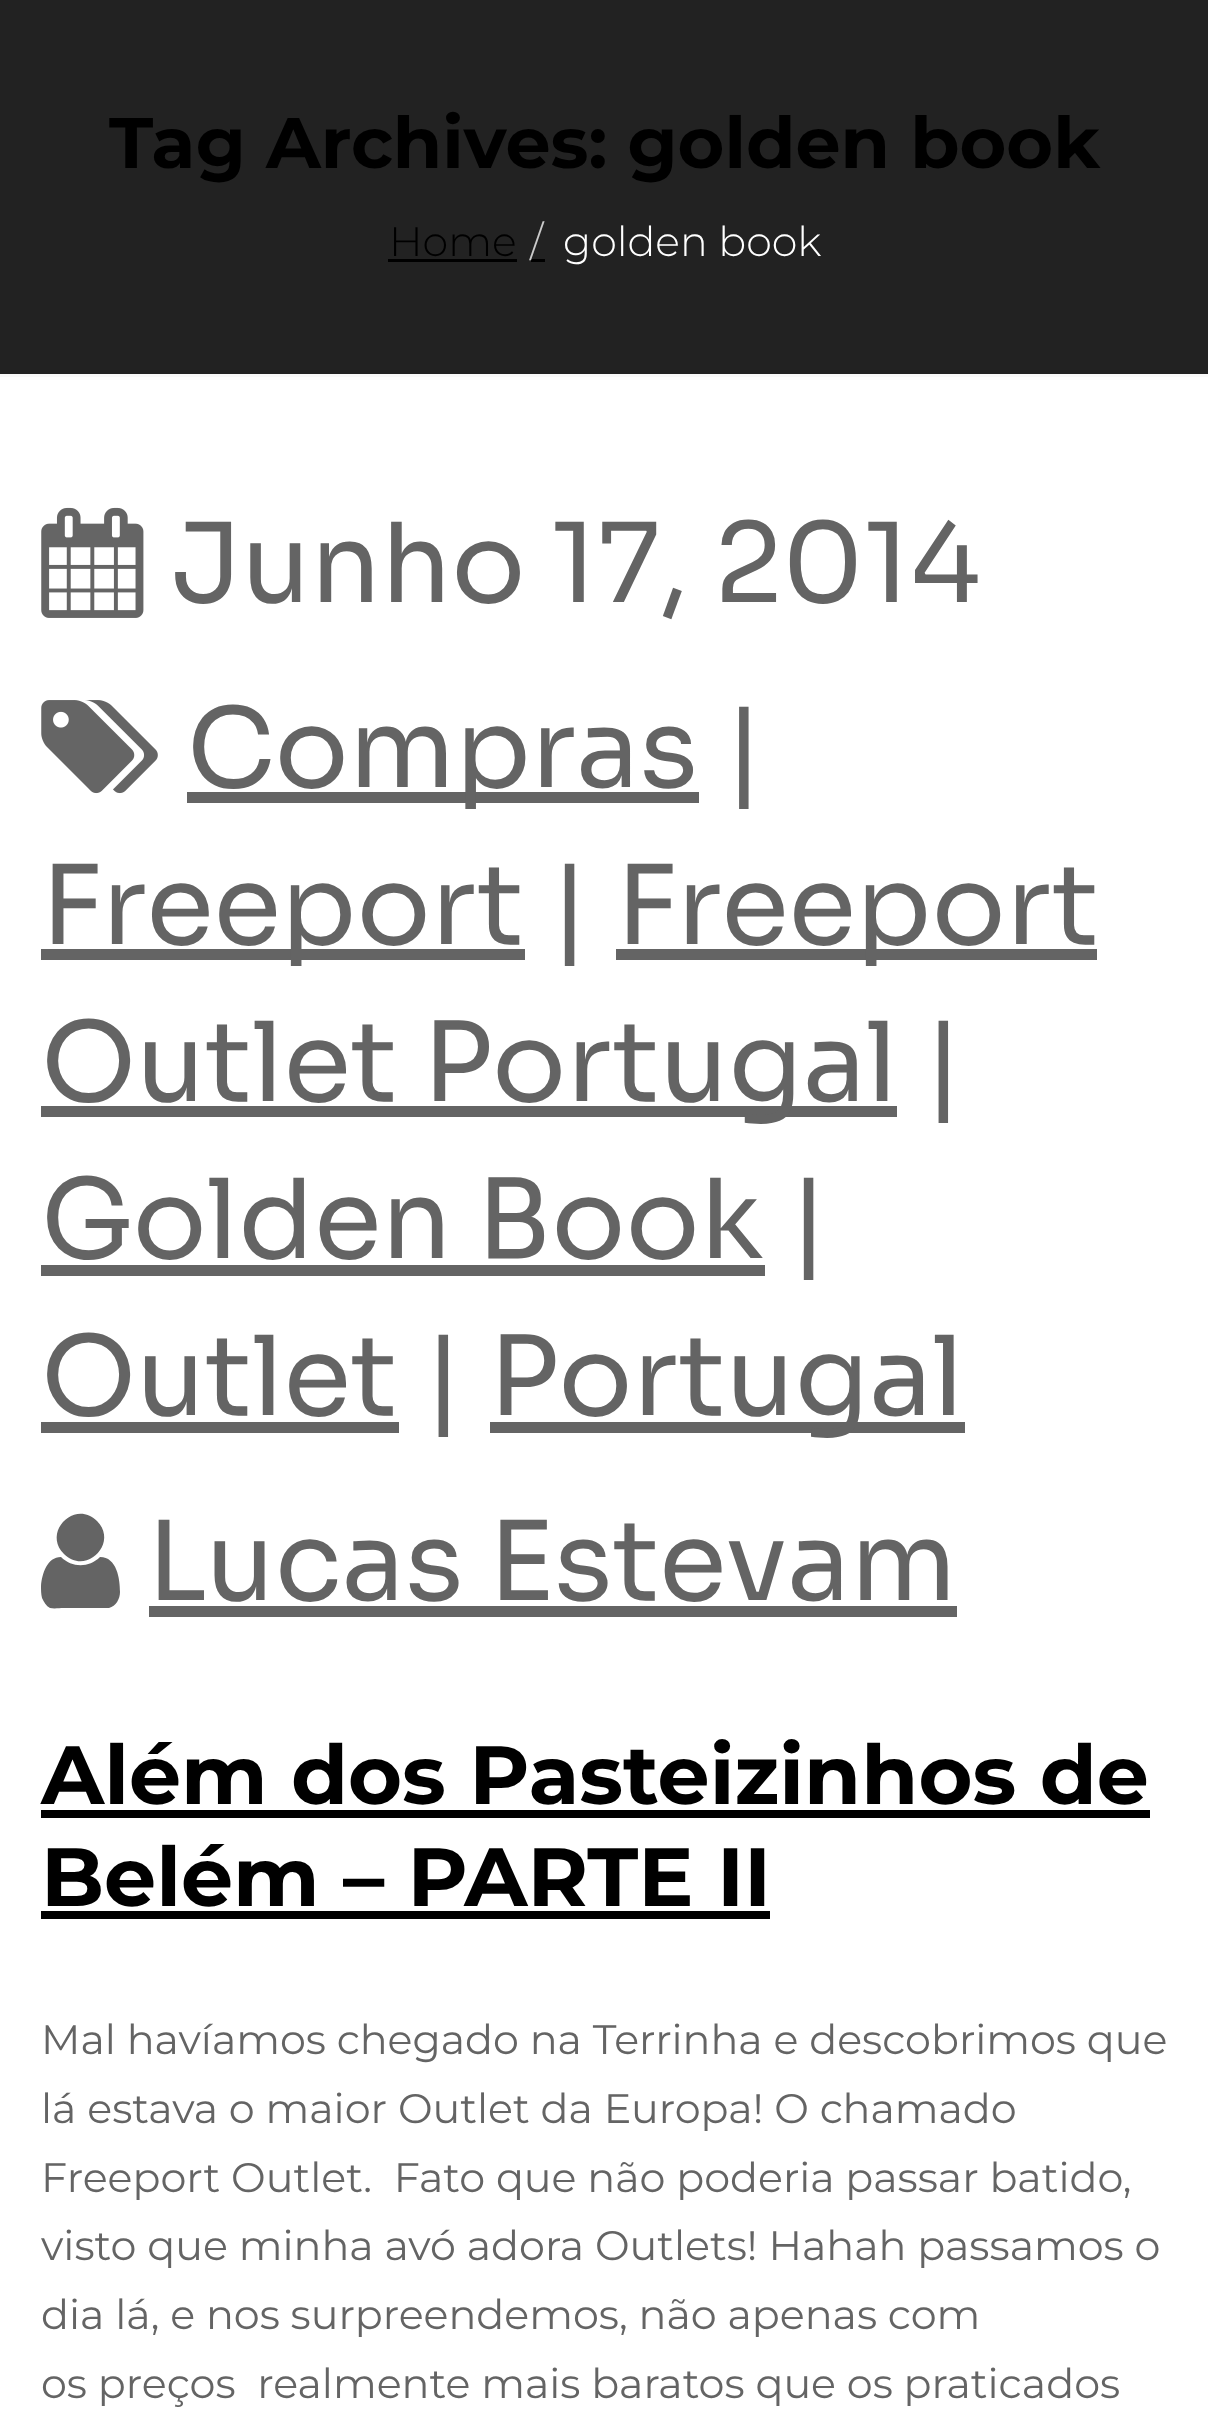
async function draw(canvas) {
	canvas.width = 1208;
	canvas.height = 2436;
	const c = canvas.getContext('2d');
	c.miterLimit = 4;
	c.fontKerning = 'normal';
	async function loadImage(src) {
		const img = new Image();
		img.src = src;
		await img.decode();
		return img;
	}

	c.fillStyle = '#fff';
	c.fillRect(0, 0, 1208, 2436);
	c.fillStyle = '#222';
	c.fillRect(0, 0, 1208, 374);
	c.fillStyle = '#f9f9f9';
	c.fillRect(0, 374, 1208, 3);
	c.font = 'bold 71.5px Montserrat';
	c.fillStyle = '#000';
	c.fillText('Tag Archives: golden book', 109, 168);
	c.font = '300 41.25px Montserrat';
	c.fillText('Home', 389, 256);
	c.fillRect(388, 259, 129, 3);
	c.fillRect(531, 259, 14, 3);
	c.fillStyle = '#ccc';
	c.fillText('/', 530, 256);
	c.fillStyle = '#fff';
	c.fillText('golden book', 563, 256);
	c.drawImage(await loadImage('img1.png'), 41, 507, 103, 111);
	c.font = '110px Sora';
	c.fillStyle = '#646464';
	c.fillText('Junho 17, 2014', 171, 602);
	c.drawImage(await loadImage('img2.png'), 41, 700, 117, 94);
	c.fillRect(187, 792, 512, 11);
	c.fillText('Compras |', 187, 787);
	c.fillRect(41, 949, 484, 11);
	c.fillText('Freeport |', 41, 944);
	c.fillRect(616, 949, 481, 11);
	c.fillText('Freeport', 616, 944);
	c.fillRect(41, 1106, 856, 11);
	c.fillText('Outlet Portugal |', 41, 1101);
	c.fillRect(41, 1265, 724, 11);
	c.fillText('Golden Book |', 41, 1258);
	c.fillRect(41, 1422, 358, 11);
	c.fillText('Outlet |', 41, 1415);
	c.fillRect(490, 1422, 475, 11);
	c.fillText('Portugal', 489, 1415);
	c.beginPath();
	c.moveTo(120, 1592);
	c.bezierCurveTo(120, 1599, 116, 1606, 109, 1608);
	c.lineTo(63, 1608);
	c.bezierCurveTo(60, 1608, 54, 1609, 50, 1608);
	c.bezierCurveTo(46, 1606, 44, 1602, 42, 1598);
	c.bezierCurveTo(41, 1594, 41, 1590, 41, 1586);
	c.bezierCurveTo(42, 1574, 47, 1557, 61, 1557);
	c.bezierCurveTo(72, 1568, 89, 1568, 100, 1557);
	c.bezierCurveTo(117, 1557, 120, 1579, 120, 1592);
	c.closePath();
	c.moveTo(97, 1521);
	c.bezierCurveTo(119, 1543, 86, 1576, 64, 1554);
	c.bezierCurveTo(42, 1532, 75, 1499, 97, 1521);
	c.closePath();
	c.fill();
	c.fillText('Lucas Estevam', 147, 1600);
	c.fillRect(149, 1606, 808, 11);
	c.font = 'bold 82.5px Montserrat';
	c.fillStyle = '#000';
	c.fillText('Além dos Pasteizinhos de', 41, 1804);
	c.fillRect(41, 1810, 1109, 8);
	c.fillText('Belém – PARTE II', 41, 1906);
	c.fillRect(41, 1911, 729, 8);
	c.font = '100 41.25px Montserrat';
	c.fillStyle = '#646464';
	for (const [text, x, y] of [
		['Mal havíamos chegado na Terrinha e descobrimos que', 41, 2054],
		['lá estava o maior Outlet da Europa! O chamado', 41, 2123],
		['Freeport Outlet.  Fato que não poderia passar batido,', 41, 2192],
		['visto que minha avó adora Outlets! Hahah passamos o', 41, 2260],
		['dia lá, e nos surpreendemos, não apenas com', 41, 2329],
		['os preços  realmente mais baratos que os praticados', 41, 2398],
	]) {
		c.fillText(text, x, y);
	}
}

draw(document.querySelector('canvas'));
